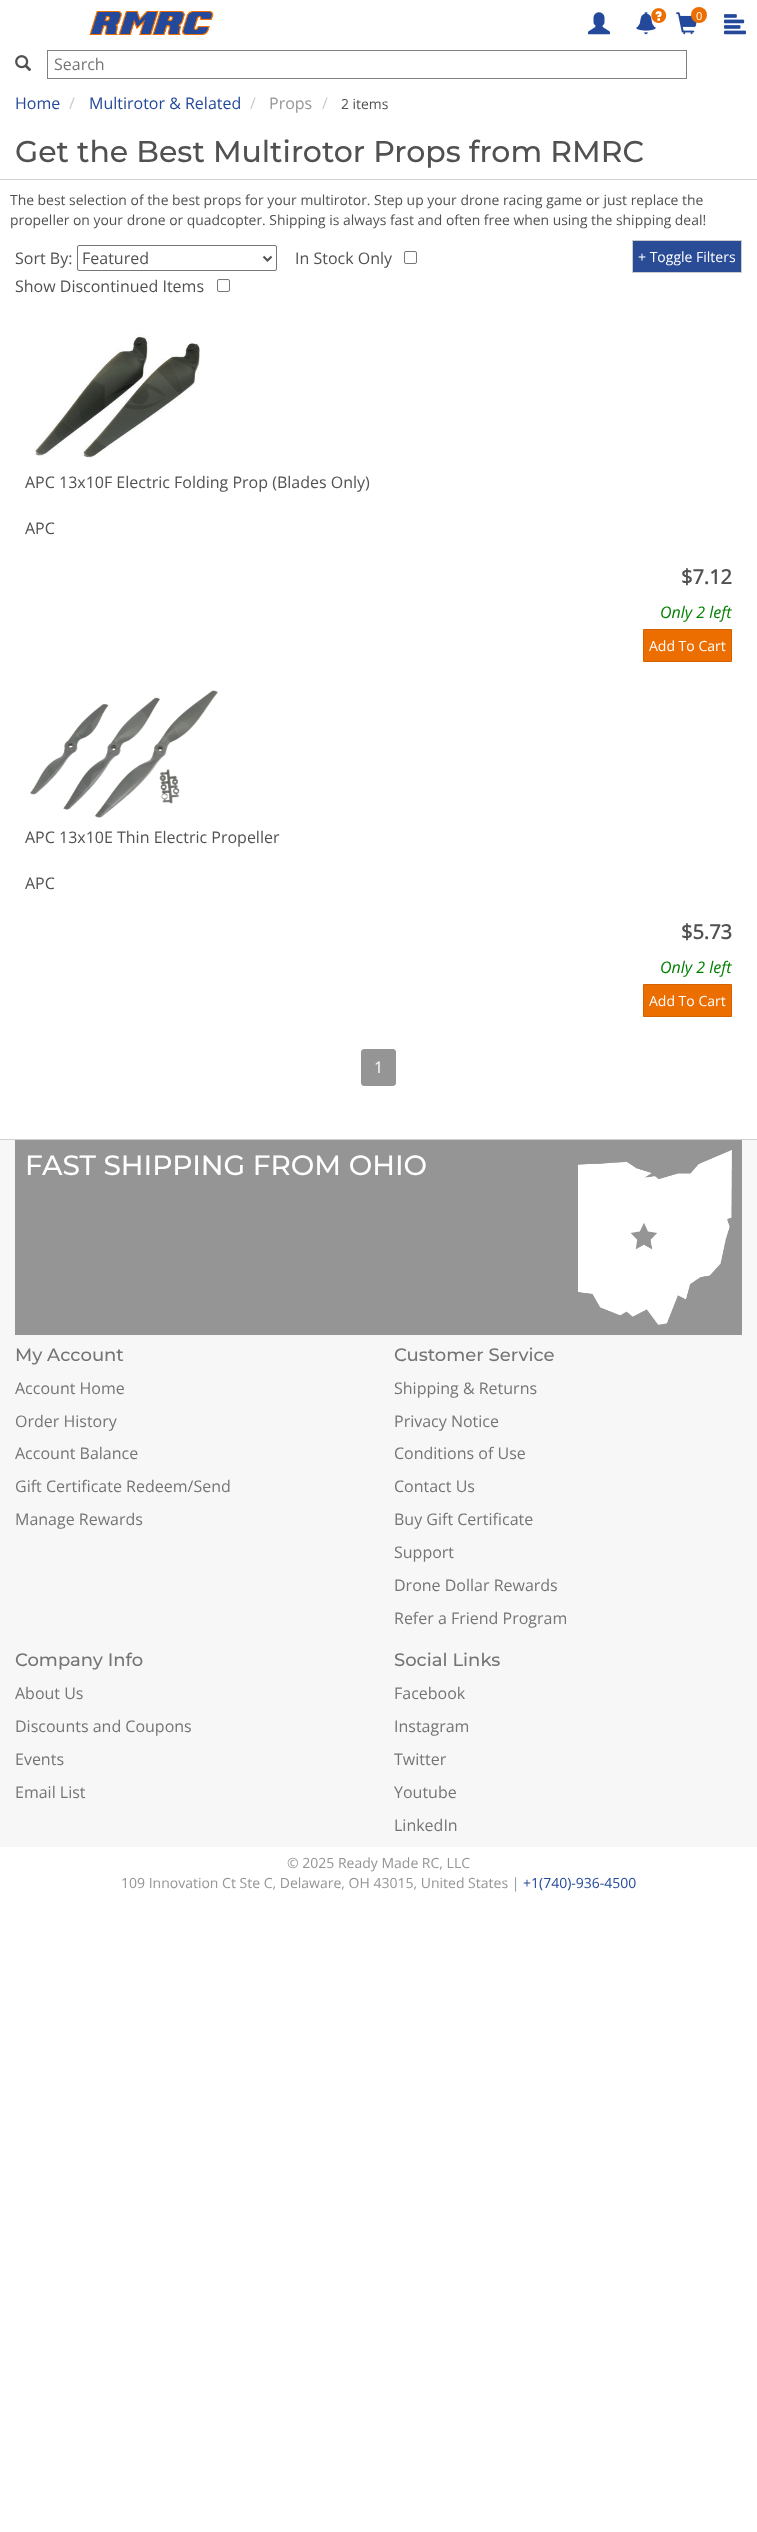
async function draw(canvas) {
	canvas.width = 757;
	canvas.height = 2532;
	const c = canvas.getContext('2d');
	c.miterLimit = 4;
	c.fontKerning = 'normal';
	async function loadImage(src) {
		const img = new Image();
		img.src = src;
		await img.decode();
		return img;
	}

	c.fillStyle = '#fff';
	c.fillRect(0, 0, 757, 2532);
	c.drawImage(await loadImage('img1.png'), 89, 11, 125, 24);
	c.drawImage(await loadImage('img2.png'), 588, 12, 22, 23);
	c.drawImage(await loadImage('img3.png'), 636, 12, 20, 23);
	c.drawImage(await loadImage('img4.png'), 651, 8, 16, 15);
	c.drawImage(await loadImage('img5.png'), 676, 12, 21, 23);
	c.fillStyle = '#ed6e00';
	c.beginPath();
	c.arc(699, 15, 8, 0, 2 * Math.PI);
	c.fill();
	c.font = '11px Open Sans';
	c.fillStyle = '#fff';
	c.fillText('0', 696, 20);
	c.drawImage(await loadImage('img6.png'), 724, 14, 22, 21);
	c.drawImage(await loadImage('img7.png'), 15, 55, 17, 17);
	c.strokeStyle = '#808080';
	c.strokeRect(47.5, 50.5, 639, 28);
	c.font = '16px Open Sans';
	c.fillStyle = '#757575';
	c.fillText('Search', 54, 70);
	c.fillStyle = '#24499b';
	c.fillText('Home', 15, 109);
	c.fillStyle = '#ccc';
	c.fillText('/', 69, 109);
	c.fillStyle = '#24499b';
	c.fillText('Multirotor & Related', 89, 109);
	c.fillStyle = '#ccc';
	c.fillText('/', 250, 109);
	c.fillStyle = '#959595';
	c.fillText('Props', 269, 109);
	c.fillStyle = '#ccc';
	c.fillText('/', 322, 109);
	c.font = '13.92px Open Sans';
	c.fillStyle = '#515151';
	c.fillText('2 items', 341, 109);
	c.fillStyle = '#d1d1d1';
	c.fillRect(0, 179, 757, 1);
	c.font = '500 30px Montserrat';
	c.fillStyle = '#515151';
	c.fillText('Get the Best Multirotor Props from RMRC', 15, 162);
	c.font = '13.92px Open Sans';
	c.fillText('The best selection of the best props for your multirotor. Step up your drone racing game or just replace the', 10, 205);
	c.fillText('propeller on your drone or quadcopter. Shipping is always fast and often free when using the shipping deal!', 10, 225);
	c.font = '16px Open Sans';
	c.fillText('Sort By:', 15, 264);
	c.beginPath();
	c.roundRect(77.5, 245.5, 199, 25, 1.5);
	c.strokeStyle = '#767676';
	c.stroke();
	c.beginPath();
	c.moveTo(263.5, 256.5);
	c.lineTo(267.5, 260.5);
	c.lineTo(271.5, 256.5);
	c.strokeStyle = '#515151';
	c.lineWidth = 2;
	c.stroke();
	c.fillText('Featured', 82, 264);
	c.fillText('In Stock Only', 295, 264);
	c.beginPath();
	c.roundRect(404.5, 251.5, 12, 12, 1.5);
	c.strokeStyle = '#767676';
	c.lineWidth = 1;
	c.stroke();
	c.fillText('Show Discontinued Items', 15, 292);
	c.beginPath();
	c.roundRect(217.5, 279.5, 12, 12, 1.5);
	c.stroke();
	c.fillStyle = '#2a4b96';
	c.beginPath();
	c.rect(632.5, 240.5, 109, 32);
	c.fill();
	c.strokeStyle = '#ccc';
	c.stroke();
	c.font = '14px Open Sans';
	c.fillStyle = '#fff';
	c.fillText('+ Toggle Filters', 638, 262);
	c.drawImage(await loadImage('img8.png'), 35, 334, 165, 124);
	c.font = '16px Open Sans';
	c.fillStyle = '#515151';
	c.fillText('APC 13x10F Electric Folding Prop (Blades Only)', 25, 488);
	c.fillText('APC', 25, 534);
	c.font = 'bold 20px Open Sans';
	c.fillText('$7.12', 681, 584);
	c.font = 'italic 16px Open Sans';
	c.fillStyle = '#008000';
	c.fillText('Only 2 left', 660, 618);
	c.fillStyle = '#ed6e00';
	c.beginPath();
	c.rect(643.5, 629.5, 88, 32);
	c.fill();
	c.strokeStyle = '#d46200';
	c.stroke();
	c.font = '14px Open Sans';
	c.fillStyle = '#fff';
	c.fillText('Add To Cart', 649, 651);
	c.drawImage(await loadImage('img9.png'), 30, 690, 188, 128);
	c.font = '16px Open Sans';
	c.fillStyle = '#515151';
	c.fillText('APC 13x10E Thin Electric Propeller', 25, 843);
	c.fillText('APC', 25, 889);
	c.font = 'bold 20px Open Sans';
	c.fillText('$5.73', 681, 939);
	c.font = 'italic 16px Open Sans';
	c.fillStyle = '#008000';
	c.fillText('Only 2 left', 660, 973);
	c.fillStyle = '#ed6e00';
	c.beginPath();
	c.rect(643.5, 984.5, 88, 32);
	c.fill();
	c.stroke();
	c.font = '14px Open Sans';
	c.fillStyle = '#fff';
	c.fillText('Add To Cart', 649, 1006);
	c.fillStyle = '#959595';
	c.beginPath();
	c.roundRect(361.5, 1049.5, 34, 36, 2.5);
	c.fill();
	c.strokeStyle = '#959595';
	c.stroke();
	c.font = '16px Open Sans';
	c.fillStyle = '#fff';
	c.fillText('1', 374, 1073);
	for (const [x, y, w, h, color] of [
		[0, 1140, 757, 707, '#f7f7f7'],
		[0, 1139, 757, 1, '#d1d1d1'],
		[15, 1140, 727, 195, '#959595'],
	]) {
		c.fillStyle = color;
		c.fillRect(x, y, w, h);
	}
	c.font = '500 28px Montserrat';
	c.fillStyle = '#fff';
	c.fillText('FAST SHIPPING FROM OHIO', 25, 1175);
	c.drawImage(await loadImage('img10.png'), 578, 1150, 154, 175);
	c.font = '500 18px Montserrat';
	c.fillStyle = '#757575';
	c.fillText('My Account', 15, 1361);
	c.font = '16px Open Sans';
	for (const [text, x, y] of [
		['Account Home', 15, 1394],
		['Order History', 15, 1427],
		['Account Balance', 15, 1459],
		['Gift Certificate Redeem/Send', 15, 1492],
		['Manage Rewards', 15, 1525],
	]) {
		c.fillText(text, x, y);
	}
	c.font = '500 18px Montserrat';
	c.fillText('Customer Service', 394, 1361);
	c.font = '16px Open Sans';
	for (const [text, x, y] of [
		['Shipping & Returns', 394, 1394],
		['Privacy Notice', 394, 1427],
		['Conditions of Use', 394, 1459],
		['Contact Us', 394, 1492],
		['Buy Gift Certificate', 394, 1525],
		['Support', 394, 1558],
		['Drone Dollar Rewards', 394, 1591],
		['Refer a Friend Program', 394, 1624],
	]) {
		c.fillText(text, x, y);
	}
	c.font = '500 18px Montserrat';
	c.fillText('Company Info', 15, 1666);
	c.font = '16px Open Sans';
	for (const [text, x, y] of [
		['About Us', 15, 1699],
		['Discounts and Coupons', 15, 1732],
		['Events', 15, 1765],
		['Email List', 15, 1798],
	]) {
		c.fillText(text, x, y);
	}
	c.font = '500 18px Montserrat';
	c.fillText('Social Links', 394, 1666);
	c.font = '16px Open Sans';
	for (const [text, x, y] of [
		['Facebook', 394, 1699],
		['Instagram', 394, 1732],
		['Twitter', 394, 1765],
		['Youtube', 394, 1798],
		['LinkedIn', 394, 1831],
	]) {
		c.fillText(text, x, y);
	}
	c.font = '14px Open Sans';
	c.fillStyle = '#959595';
	c.fillText('© 2025 Ready Made RC, LLC', 287, 1868);
	c.fillText('109 Innovation Ct Ste C, Delaware, OH 43015, United States |', 121, 1888);
	c.fillStyle = '#24499b';
	c.fillText('+1(740)-936-4500', 523, 1888);
}

draw(document.querySelector('canvas'));
